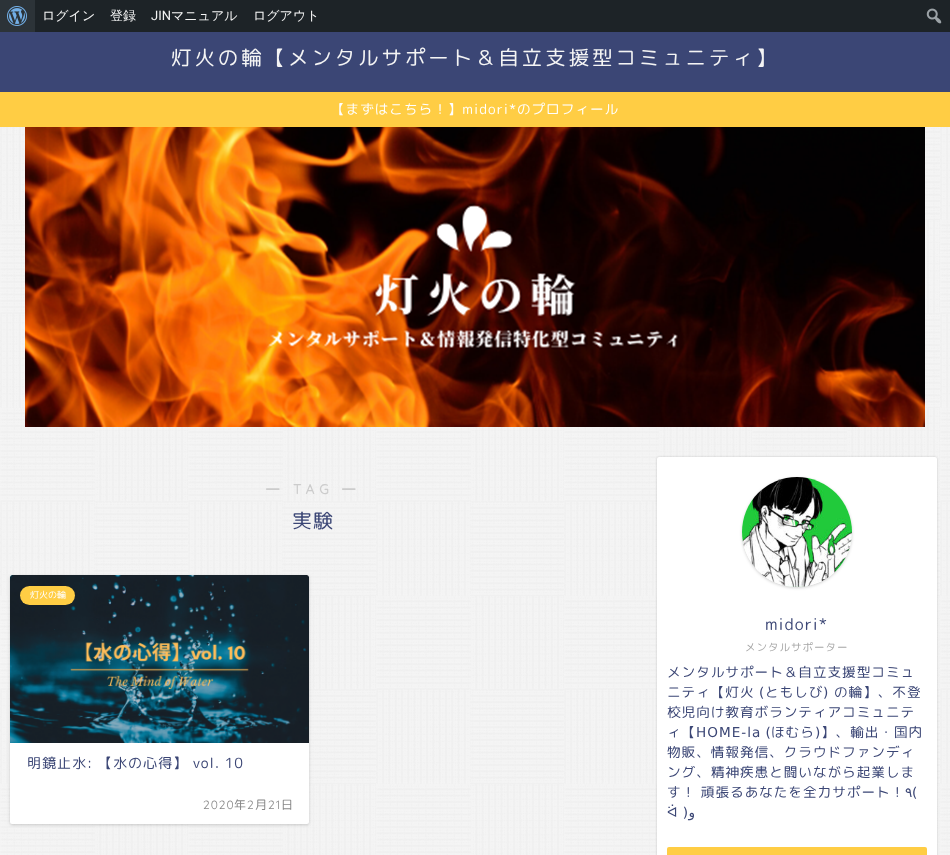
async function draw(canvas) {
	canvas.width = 950;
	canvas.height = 855;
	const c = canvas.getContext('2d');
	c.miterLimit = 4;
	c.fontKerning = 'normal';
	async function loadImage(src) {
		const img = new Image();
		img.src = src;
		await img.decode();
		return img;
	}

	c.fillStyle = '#fff';
	c.fillRect(0, 0, 950, 855);
	c.fillStyle = '#1d2327';
	c.fillRect(35, 0, 915, 32);
	c.fillStyle = '#2c3338';
	c.fillRect(0, 0, 35, 32);
	c.drawImage(await loadImage('img1.png'), 7, 6, 20, 20);
	c.font = '500 13px WenQuanYi Zen Hei';
	c.fillStyle = '#f4f4f4';
	c.fillText('ログイン', 42, 20);
	c.fillText('登録', 110, 20);
	c.font = '13px Roboto';
	c.fillText('JIN', 151, 20);
	c.font = '500 13px WenQuanYi Zen Hei';
	c.fillText('マニュアル', 171, 20);
	c.fillText('ログアウト', 253, 20);
	c.drawImage(await loadImage('img2.png'), 926, 8, 16, 16);
	c.drawImage(await loadImage('img3.png'), 0, 127, 950, 728);
	c.fillStyle = '#3b4675';
	c.fillRect(0, 32, 950, 60);
	c.letterSpacing = '3px';
	c.font = '20.4px "Rounded Mplus 1c"';
	c.fillStyle = '#f4f4f4';
	c.fillText('灯火の輪【メンタルサポート＆自立支援型コミュニティ】', 171, 65);
	c.fillStyle = '#ffcd44';
	c.fillRect(0, 92, 950, 35);
	c.letterSpacing = '1px';
	c.font = '13.6px "Rounded Mplus 1c"';
	c.fillStyle = '#fff';
	c.fillText('【まずはこちら！】midori*のプロフィール', 331, 114);
	c.drawImage(await loadImage('img4.png'), 25, 127, 900, 300);
	c.letterSpacing = '5px';
	c.font = 'bold 13.6px "Rounded Mplus 1c Bold"';
	c.fillStyle = '#ccc';
	c.fillText('―', 266, 494);
	c.font = 'bold 13.6px Quicksand';
	c.fillText('TAG', 293, 494);
	c.font = 'bold 13.6px "Rounded Mplus 1c Bold"';
	c.fillText('―', 342, 494);
	c.letterSpacing = '1px';
	c.font = '20px "Rounded Mplus 1c"';
	c.fillStyle = '#3b4675';
	c.fillText('実験', 292, 528);
	c.fillStyle = '#0000002e';
	c.filter = 'blur(1.5px)';
	c.beginPath();
	c.roundRect(10, 576, 299, 249, 2);
	c.fill();
	c.filter = 'none';
	c.fillStyle = '#fff';
	c.beginPath();
	c.roundRect(10, 575, 299, 249, 2);
	c.fill();
	c.drawImage(await loadImage('img5.png'), 10, 575, 299, 168);
	c.fillStyle = '#ffcd44';
	c.beginPath();
	c.roundRect(20, 586, 55, 19, 9.5);
	c.fill();
	c.letterSpacing = '0px';
	c.font = '9px "Rounded Mplus 1c"';
	c.fillStyle = '#fff';
	c.fillText('灯火の輪', 30, 598);
	c.letterSpacing = '1px';
	c.font = '14px "Rounded Mplus 1c"';
	c.fillStyle = '#3b4675';
	c.fillText('明鏡止水: 【水の心得】 vol. 10', 27, 768);
	c.font = '300 12px Quicksand';
	c.fillStyle = '#888';
	c.fillText('2020', 203, 809);
	c.font = '12px "Rounded Mplus 1c"';
	c.fillText('年', 234, 809);
	c.font = '300 12px Quicksand';
	c.fillText('2', 247, 809);
	c.font = '12px "Rounded Mplus 1c"';
	c.fillText('月', 255, 809);
	c.font = '300 12px Quicksand';
	c.fillText('21', 268, 809);
	c.font = '12px "Rounded Mplus 1c"';
	c.fillText('日', 281, 809);
	c.fillStyle = '#0000002e';
	c.filter = 'blur(1px)';
	c.beginPath();
	c.roundRect(657, 457, 280, 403, 2);
	c.fill();
	c.filter = 'none';
	c.fillStyle = '#fff';
	c.beginPath();
	c.roundRect(657, 457, 280, 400, 2);
	c.fill();
	c.fillStyle = '#0000002e';
	c.filter = 'blur(1.5px)';
	c.beginPath();
	c.roundRect(742, 478, 110, 110, 55);
	c.fill();
	c.filter = 'none';
	c.fillStyle = '#fff';
	c.beginPath();
	c.arc(797, 532, 55, 0, 2 * Math.PI);
	c.fill();
	c.drawImage(await loadImage('img6.png'), 742, 477, 110, 110);
	c.font = '16px "Rounded Mplus 1c"';
	c.fillStyle = '#3b4675';
	c.fillText('midori*', 765, 630);
	c.font = '10.5px "Rounded Mplus 1c"';
	c.fillStyle = '#a6a6a6';
	c.fillText('メンタルサポーター', 745, 651);
	c.font = '13.6px "Rounded Mplus 1c"';
	c.fillStyle = '#3b4675';
	c.fillText('メンタルサポート＆自立支援型コミュ', 667, 677);
	c.fillText('ニティ【灯火', 667, 697);
	c.font = '13.6px DejaVu Sans';
	c.fillText('(', 759, 697);
	c.font = '13.6px "Rounded Mplus 1c"';
	c.fillText('ともしび', 765, 697);
	c.font = '13.6px DejaVu Sans';
	c.fillText(')', 823, 697);
	c.font = '13.6px "Rounded Mplus 1c"';
	for (const [text, x, y] of [
		['の輪】、不登', 834, 697],
		['校児向け教育ボランティアコミュニテ', 667, 717],
		['ィ【', 667, 737],
	]) {
		c.fillText(text, x, y);
	}
	c.wordSpacing = '-1px';
	c.font = '13.6px DejaVu Sans';
	c.fillText('HOME-la (', 696, 737);
	c.wordSpacing = '0px';
	c.font = '13.6px "Rounded Mplus 1c"';
	c.fillText('ほむら', 771, 737);
	c.font = '13.6px DejaVu Sans';
	c.fillText(')', 815, 737);
	c.font = '13.6px "Rounded Mplus 1c"';
	for (const [text, x, y] of [
		['】、輸出・国内', 821, 737],
		['物販、情報発信、クラウドファンディ', 667, 757],
		['ング、精神疾患と闘いながら起業しま', 667, 777],
		['す！ 頑張るあなたを全力サポート！', 667, 797],
	]) {
		c.fillText(text, x, y);
	}
	c.font = '13.6px DejaVu Sans';
	c.fillText('٩', 905, 797);
	c.fillText('(', 912, 797);
	c.wordSpacing = '-1px';
	c.fillText('ᐛ )', 667, 817);
	c.wordSpacing = '0px';
	c.direction = 'rtl';
	c.fillText('و', 695, 817);
	c.fillStyle = '#ffcd44';
	c.beginPath();
	c.roundRect(667, 847, 260, 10, 2);
	c.fill();
}

draw(document.querySelector('canvas'));
